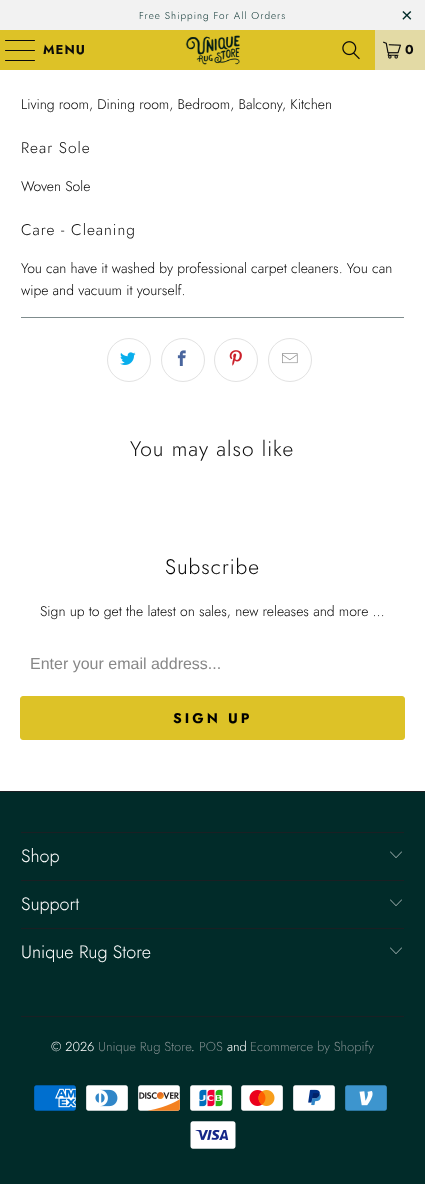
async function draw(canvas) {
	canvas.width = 425;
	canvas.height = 1184;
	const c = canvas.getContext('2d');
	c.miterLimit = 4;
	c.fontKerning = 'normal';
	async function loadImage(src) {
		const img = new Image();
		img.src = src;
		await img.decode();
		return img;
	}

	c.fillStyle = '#fff';
	c.fillRect(0, 0, 425, 1184);
	c.fillStyle = '#f2f2f2';
	c.fillRect(0, 0, 425, 30);
	c.letterSpacing = '1px';
	c.font = '300 10px Jost';
	c.fillStyle = '#012b29';
	c.fillText('Free Shipping For All Orders', 139, 19);
	c.font = '20px Liberation Sans';
	c.fillText('×', 401, 22);
	c.fillStyle = '#ddc227';
	c.fillRect(0, 30, 375, 40);
	c.fillStyle = '#0b0b0b';
	c.beginPath();
	c.roundRect(5, 40, 30, 1, 0.5);
	c.fill();
	c.beginPath();
	c.roundRect(5, 50, 30, 1, 0.5);
	c.fill();
	c.beginPath();
	c.roundRect(5, 60, 30, 1, 0.5);
	c.fill();
	c.font = 'bold 13px Jost';
	c.fillText('MENU', 43, 54);
	c.drawImage(await loadImage('img1.png'), 185, 35, 55, 30);
	c.drawImage(await loadImage('img2.png'), 342, 41, 18, 19);
	c.fillStyle = '#e3daa5';
	c.fillRect(375, 30, 50, 40);
	c.drawImage(await loadImage('img3.png'), 383, 41, 18, 18);
	c.fillStyle = '#0b0b0b';
	c.fillText('0', 405, 54);
	c.letterSpacing = '0px';
	c.font = '300 14px Jost';
	c.fillStyle = '#000';
	c.fillText('Living room, Dining room, Bedroom, Balcony, Kitchen', 21, 109);
	c.letterSpacing = '1px';
	c.font = '300 15.5px Jost';
	c.fillStyle = '#0b0b0b';
	c.fillText('Rear Sole', 21, 153);
	c.letterSpacing = '0px';
	c.font = '300 14px Jost';
	c.fillStyle = '#000';
	c.fillText('Woven Sole', 21, 191);
	c.letterSpacing = '1px';
	c.font = '300 15.5px Jost';
	c.fillStyle = '#0b0b0b';
	c.fillText('Care - Cleaning', 21, 235);
	c.letterSpacing = '0px';
	c.font = '300 14px Jost';
	c.fillStyle = '#000';
	c.fillText('You can have it washed by professional carpet cleaners. You can', 21, 273);
	c.fillText('wipe and vacuum it yourself.', 21, 295);
	c.fillStyle = '#7f8c8d';
	c.fillRect(21, 317, 383, 1);
	c.beginPath();
	c.arc(129, 360, 21.5, 0, 2 * Math.PI);
	c.strokeStyle = '#e2e2e2';
	c.stroke();
	c.drawImage(await loadImage('img4.png'), 120, 352, 16, 13);
	c.beginPath();
	c.arc(183, 360, 21.5, 0, 2 * Math.PI);
	c.stroke();
	c.drawImage(await loadImage('img5.png'), 177, 350, 9, 16);
	c.beginPath();
	c.arc(236, 360, 21.5, 0, 2 * Math.PI);
	c.stroke();
	c.drawImage(await loadImage('img6.png'), 229, 350, 13, 16);
	c.beginPath();
	c.arc(290, 360, 21.5, 0, 2 * Math.PI);
	c.stroke();
	c.drawImage(await loadImage('img7.png'), 282, 353, 16, 11);
	c.letterSpacing = '1px';
	c.font = '300 21px Jost';
	c.fillStyle = '#0b0b0b';
	c.fillText('You may also like', 130, 456);
	c.fillStyle = '#000';
	c.fillText('Subscribe', 165, 574);
	c.letterSpacing = '0px';
	c.font = '300 14px Jost';
	c.fillText('Sign up to get the latest on sales, new releases and more …', 40, 616);
	c.font = '16px Liberation Sans';
	c.fillStyle = '#888';
	c.fillText('Enter your email address...', 30, 669);
	c.fillStyle = '#ddc227';
	c.beginPath();
	c.roundRect(20.5, 696.5, 384, 43, 2.5);
	c.fill();
	c.strokeStyle = '#ddc227';
	c.stroke();
	c.letterSpacing = '3px';
	c.font = 'bold 14px Jost';
	c.fillStyle = '#000';
	c.fillText('SIGN UP', 173, 723);
	for (const [x, y, w, h, color] of [
		[0, 792, 425, 392, '#012b29'],
		[0, 791, 425, 1, '#1b1f23'],
		[21, 832, 383, 1, '#1b1f23'],
	]) {
		c.fillStyle = color;
		c.fillRect(x, y, w, h);
	}
	c.letterSpacing = '0px';
	c.font = '300 18px Jost';
	c.fillStyle = '#fff';
	c.fillText('Shop', 21, 862);
	c.drawImage(await loadImage('img8.png'), 390, 851, 12, 7);
	c.fillStyle = '#1b1f23';
	c.fillRect(21, 880, 383, 1);
	c.fillStyle = '#fff';
	c.fillText('Support', 21, 910);
	c.drawImage(await loadImage('img8.png'), 390, 899, 12, 7);
	c.fillStyle = '#1b1f23';
	c.fillRect(21, 928, 383, 1);
	c.fillStyle = '#fff';
	c.fillText('Unique Rug Store', 21, 958);
	c.drawImage(await loadImage('img8.png'), 390, 947, 12, 7);
	c.fillStyle = '#1b1f23';
	c.fillRect(21, 1016, 383, 1);
	c.font = '300 13px Jost';
	c.fillStyle = '#fff';
	c.fillText('© 2026', 51, 1051);
	c.fillStyle = '#7f8c8d';
	c.fillText('Unique Rug Store', 98, 1051);
	c.fillStyle = '#fff';
	c.fillText('.', 191, 1051);
	c.fillStyle = '#7f8c8d';
	c.fillText('POS', 199, 1051);
	c.fillStyle = '#fff';
	c.fillText('and', 227, 1051);
	c.fillStyle = '#7f8c8d';
	c.fillText('Ecommerce by Shopify', 250, 1051);
	c.drawImage(await loadImage('img9.png'), 34, 1085, 42, 26);
	c.drawImage(await loadImage('img10.png'), 86, 1085, 42, 26);
	c.drawImage(await loadImage('img11.png'), 138, 1085, 42, 26);
	c.drawImage(await loadImage('img12.png'), 190, 1085, 42, 26);
	c.drawImage(await loadImage('img13.png'), 241, 1085, 42, 26);
	c.drawImage(await loadImage('img14.png'), 293, 1085, 42, 26);
	c.drawImage(await loadImage('img15.png'), 345, 1085, 42, 26);
	c.drawImage(await loadImage('img16.png'), 190, 1121, 46, 28);
}

draw(document.querySelector('canvas'));
